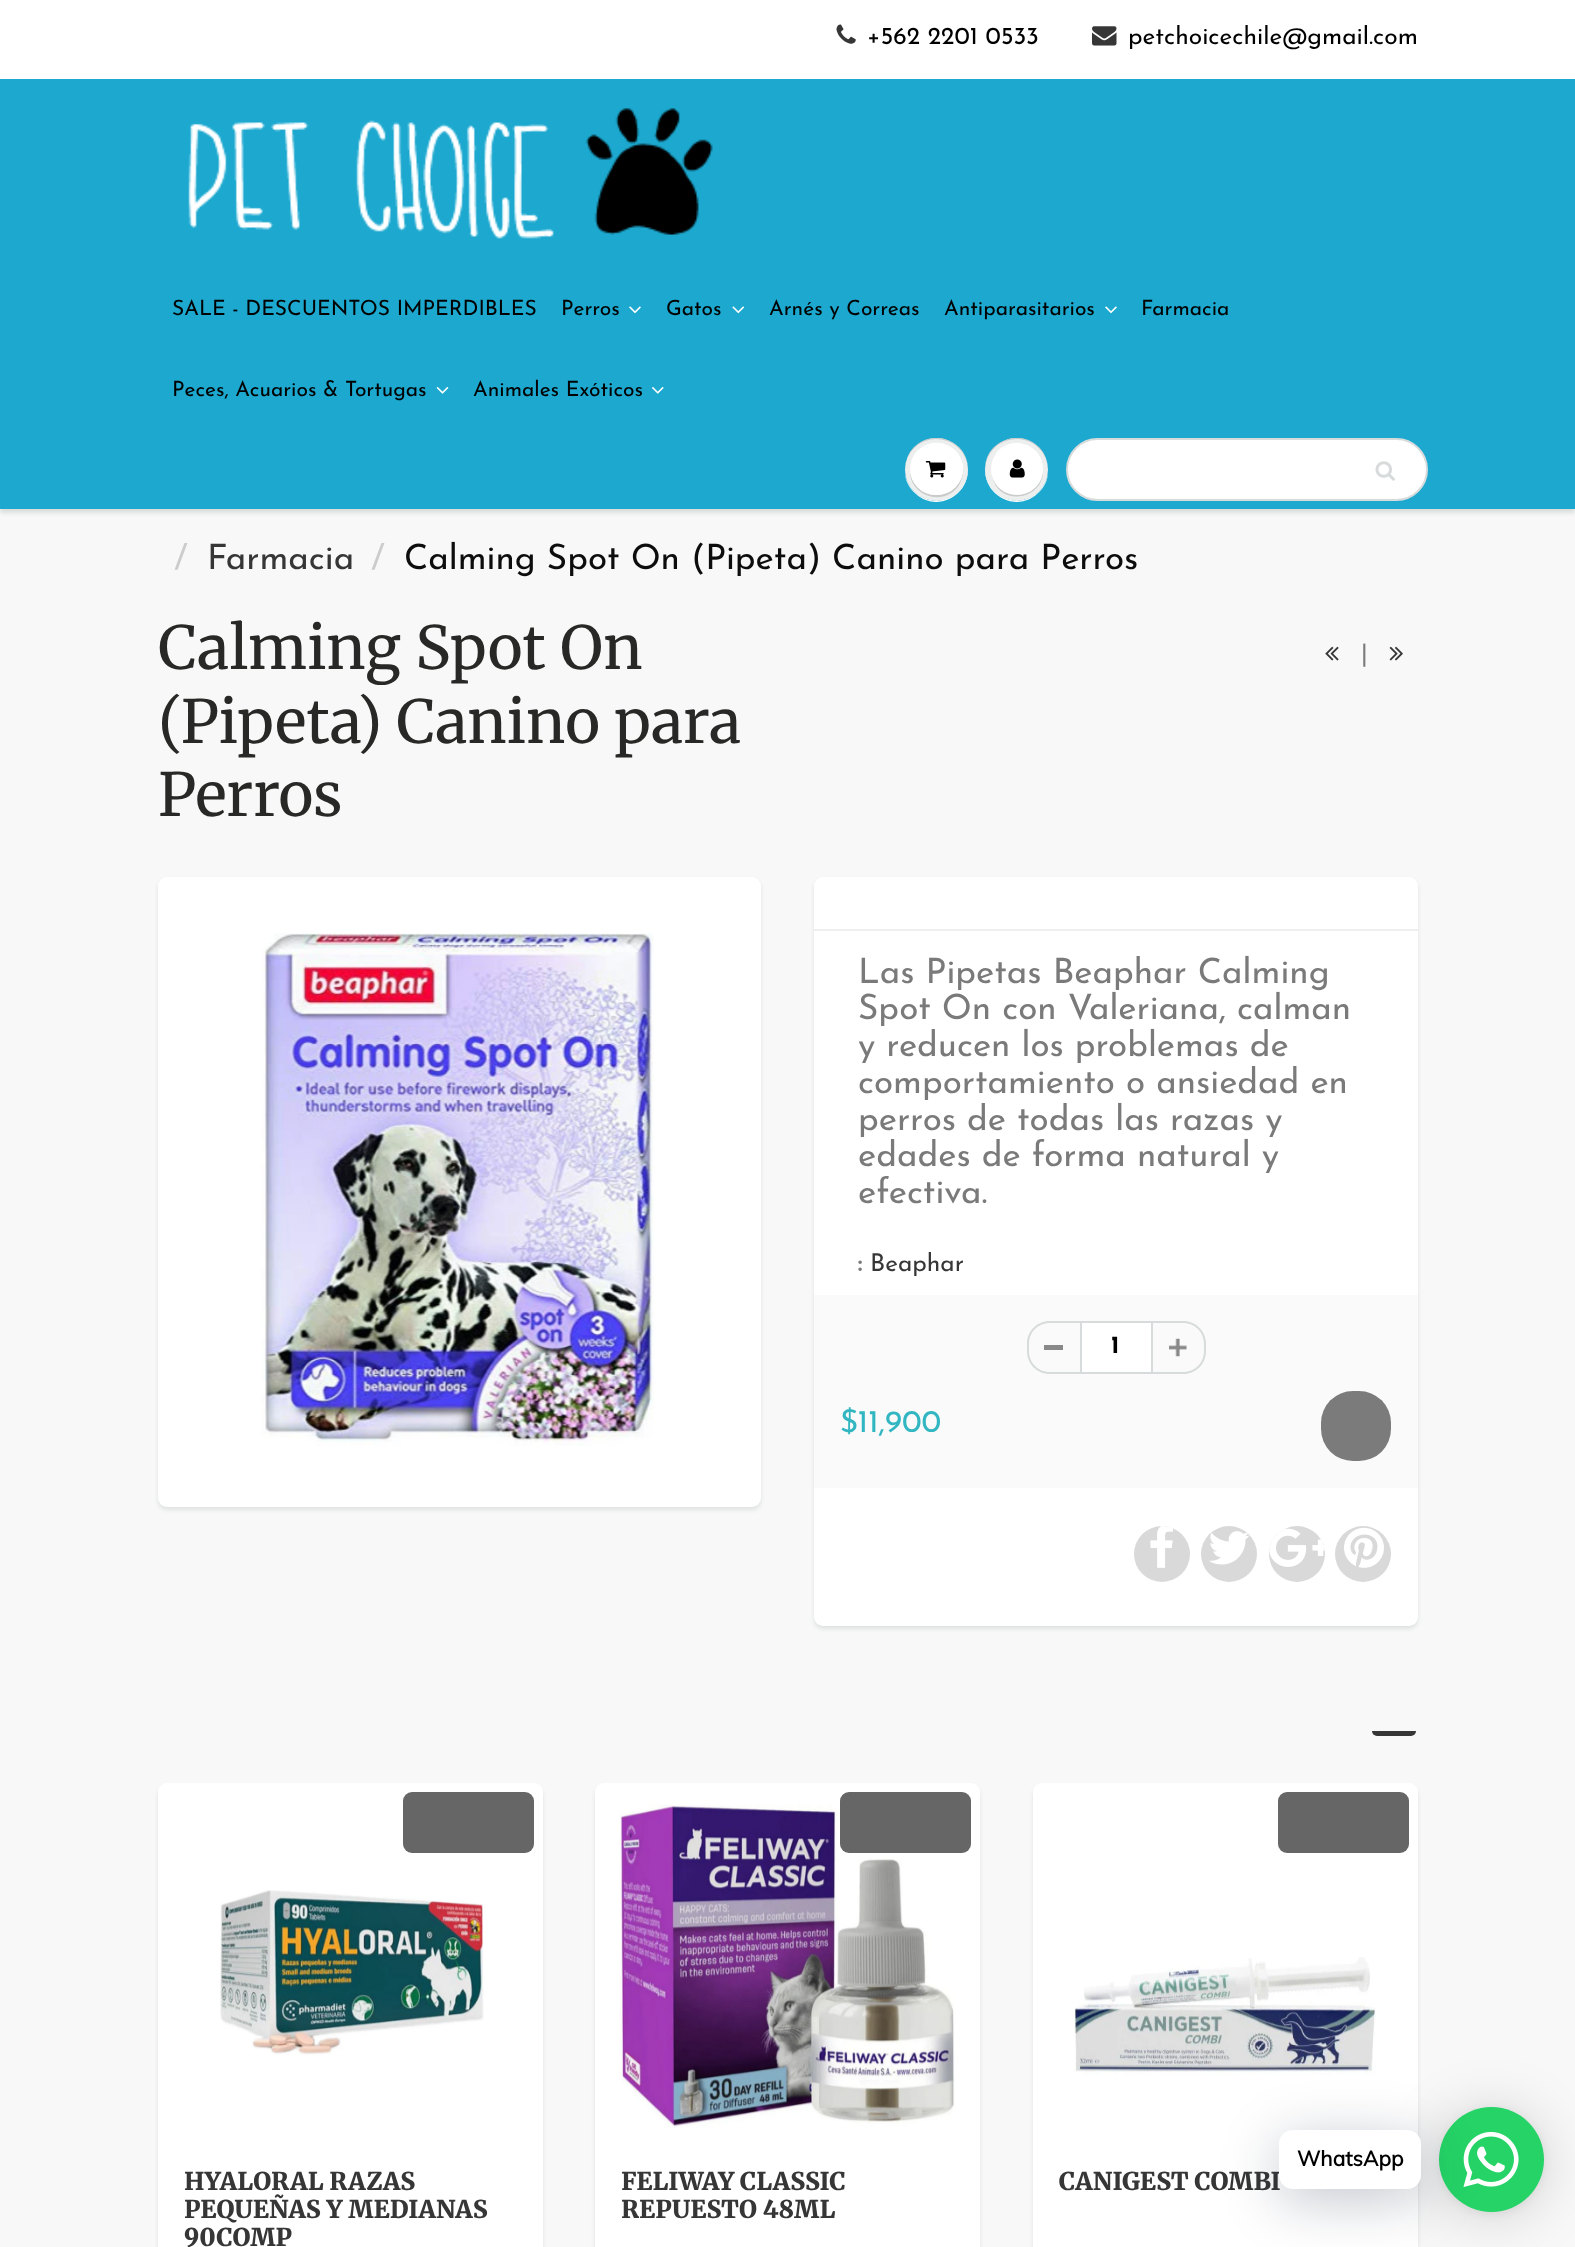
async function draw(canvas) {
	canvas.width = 1575;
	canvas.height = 2247;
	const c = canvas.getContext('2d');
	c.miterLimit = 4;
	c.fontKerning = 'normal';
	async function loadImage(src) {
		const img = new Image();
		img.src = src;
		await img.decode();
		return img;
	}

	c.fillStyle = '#fff';
	c.fillRect(0, 0, 1575, 2247);
	c.drawImage(await loadImage('img1.png'), 836, 24, 20, 20);
	c.font = '24.5px Josefin Sans';
	c.fillStyle = '#000';
	c.fillText('+562 2201 0533', 867, 44);
	c.drawImage(await loadImage('img2.png'), 1092, 26, 25, 20);
	c.fillText('petchoicechile@gmail.com', 1128, 44);
	c.fillStyle = '#f8f8f8';
	c.fillRect(0, 509, 1575, 1738);
	c.fillStyle = '#0b191c1f';
	c.filter = 'blur(2px)';
	c.beginPath();
	c.rect(0, 81, 1575, 432);
	c.fill();
	c.filter = 'none';
	c.fillStyle = '#1ca8cf';
	c.fillRect(0, 79, 1575, 430);
	c.fillStyle = '#fff';
	c.fillRect(0, 78, 1575, 1);
	c.drawImage(await loadImage('img3.png'), 188, 108, 525, 131);
	c.font = '21px Josefin Sans';
	c.fillStyle = '#000';
	c.fillText('SALE - DESCUENTOS IMPERDIBLES', 172, 315);
	c.fillText('Perros', 561, 315);
	c.drawImage(await loadImage('img4.png'), 629, 306, 12, 8);
	c.fillText('Gatos', 666, 315);
	c.drawImage(await loadImage('img5.png'), 732, 306, 13, 8);
	c.fillText('Arnés y Correas', 769, 315);
	c.fillText('Antiparasitarios', 944, 315);
	c.drawImage(await loadImage('img4.png'), 1105, 306, 12, 8);
	c.fillText('Farmacia', 1141, 315);
	c.fillText('Peces, Acuarios & Tortugas', 172, 396);
	c.drawImage(await loadImage('img6.png'), 436, 387, 13, 7);
	c.fillText('Animales Exóticos', 473, 396);
	c.drawImage(await loadImage('img7.png'), 652, 387, 12, 7);
	c.fillStyle = '#fff';
	c.beginPath();
	c.moveTo(905, 475);
	c.bezierCurveTo(906, 482, 910, 489, 916, 494);
	c.bezierCurveTo(938, 514, 973, 493, 967, 465);
	c.bezierCurveTo(971, 493, 938, 512, 916, 493);
	c.bezierCurveTo(911, 489, 907, 482, 905, 475);
	c.closePath();
	c.fill();
	c.fillStyle = '#edefef';
	c.beginPath();
	c.arc(936.5, 469.5, 31.5, 0, 2 * Math.PI);
	c.fill();
	c.fillStyle = '#c9cbcb';
	c.beginPath();
	c.moveTo(936, 439);
	c.bezierCurveTo(954, 439, 968, 453, 968, 470);
	c.bezierCurveTo(969, 439, 928, 426, 910, 452);
	c.bezierCurveTo(907, 457, 905, 464, 905, 470);
	c.bezierCurveTo(905, 453, 919, 439, 936, 439);
	c.closePath();
	c.fill();
	c.beginPath();
	c.moveTo(910, 470);
	c.bezierCurveTo(909, 499, 950, 508, 961, 481);
	c.bezierCurveTo(963, 476, 964, 469, 962, 464);
	c.bezierCurveTo(968, 491, 931, 507, 915, 484);
	c.bezierCurveTo(912, 480, 910, 475, 910, 470);
	c.closePath();
	c.fill();
	c.fillStyle = '#fff';
	c.beginPath();
	c.roundRect(910, 443, 53, 52, 26);
	c.fill();
	c.beginPath();
	c.moveTo(936, 444);
	c.bezierCurveTo(955, 444, 967, 465, 960, 481);
	c.bezierCurveTo(974, 455, 939, 429, 918, 451);
	c.bezierCurveTo(913, 456, 910, 463, 910, 470);
	c.bezierCurveTo(911, 455, 922, 444, 936, 444);
	c.closePath();
	c.fill();
	c.drawImage(await loadImage('img8.png'), 925, 461, 21, 17);
	c.beginPath();
	c.moveTo(986, 465);
	c.bezierCurveTo(980, 493, 1015, 514, 1037, 494);
	c.bezierCurveTo(1043, 489, 1047, 482, 1048, 475);
	c.bezierCurveTo(1046, 482, 1042, 489, 1037, 493);
	c.bezierCurveTo(1015, 512, 982, 493, 986, 465);
	c.closePath();
	c.fill();
	c.fillStyle = '#edefef';
	c.beginPath();
	c.arc(1016.5, 469.5, 31.5, 0, 2 * Math.PI);
	c.fill();
	c.fillStyle = '#c9cbcb';
	c.beginPath();
	c.moveTo(1017, 439);
	c.bezierCurveTo(1034, 439, 1048, 453, 1048, 470);
	c.bezierCurveTo(1048, 464, 1046, 457, 1043, 452);
	c.bezierCurveTo(1025, 426, 984, 439, 985, 470);
	c.bezierCurveTo(985, 453, 999, 439, 1017, 439);
	c.closePath();
	c.moveTo(992, 476);
	c.bezierCurveTo(998, 507, 1044, 501, 1043, 470);
	c.bezierCurveTo(1042, 499, 1000, 504, 992, 476);
	c.closePath();
	c.fill();
	c.fillStyle = '#fff';
	c.beginPath();
	c.arc(1017, 469, 26, 0, 2 * Math.PI);
	c.fill();
	c.beginPath();
	c.moveTo(1017, 444);
	c.bezierCurveTo(1031, 444, 1042, 455, 1043, 470);
	c.bezierCurveTo(1044, 443, 1007, 433, 994, 456);
	c.bezierCurveTo(999, 449, 1007, 444, 1017, 444);
	c.closePath();
	c.fill();
	c.drawImage(await loadImage('img9.png'), 1009, 459, 16, 19);
	c.beginPath();
	c.roundRect(1067, 439, 360, 61, 30.5);
	c.fill();
	c.strokeStyle = '#d7dbdb';
	c.lineWidth = 2;
	c.stroke();
	c.drawImage(await loadImage('img10.png'), 1375, 461, 20, 20);
	c.font = '35px Josefin Sans';
	c.fillStyle = '#ccc';
	c.fillText('/', 174, 569);
	c.fillStyle = '#363636';
	c.fillText('Farmacia', 207, 569);
	c.fillStyle = '#ccc';
	c.fillText('/', 371, 569);
	c.fillStyle = '#0d0d0d';
	c.fillText('Calming Spot On (Pipeta) Canino para Perros', 404, 569);
	c.font = '59.5px Merriweather';
	c.fillStyle = '#282827';
	for (const [text, x, y] of [
		['Calming Spot On', 158, 669],
		['(Pipeta) Canino para', 158, 743],
		['Perros', 158, 816],
	]) {
		c.fillText(text, x, y);
	}
	c.drawImage(await loadImage('img11.png'), 1325, 646, 14, 15);
	c.font = '24.5px Josefin Sans';
	c.fillStyle = '#7a7a7a';
	c.fillText('|', 1361, 661);
	c.drawImage(await loadImage('img12.png'), 1389, 646, 14, 15);
	c.fillStyle = '#0b191c1a';
	c.filter = 'blur(2px)';
	c.beginPath();
	c.roundRect(158, 880, 603, 630, 9);
	c.fill();
	c.filter = 'none';
	c.fillStyle = '#fff';
	c.beginPath();
	c.roundRect(158, 877, 603, 630, 9);
	c.fill();
	c.drawImage(await loadImage('img13.png'), 261, 933, 393, 513);
	c.fillStyle = '#0b191c1a';
	c.filter = 'blur(2px)';
	c.beginPath();
	c.roundRect(814, 880, 604, 749, 9);
	c.fill();
	c.filter = 'none';
	c.fillStyle = '#fff';
	c.beginPath();
	c.roundRect(814, 877, 604, 749, 9);
	c.fill();
	c.fillStyle = '#efefef';
	c.fillRect(814, 929, 604, 2);
	c.font = '35px Josefin Sans';
	c.fillStyle = '#7a7a7a';
	for (const [text, x, y] of [
		['Las Pipetas Beaphar Calming', 858, 983],
		['Spot On con Valeriana, calman', 858, 1019],
		['y reducen los problemas de', 858, 1056],
		['comportamiento o ansiedad en', 858, 1093],
		['perros de todas las razas y', 858, 1130],
		['edades de forma natural y', 858, 1166],
		['efectiva.', 858, 1203],
	]) {
		c.fillText(text, x, y);
	}
	c.font = 'bold 24.5px Josefin Sans';
	c.fillText(':', 858, 1271);
	c.font = '24.5px Josefin Sans';
	c.fillStyle = '#363636';
	c.fillText('Beaphar', 870, 1271);
	c.fillStyle = '#fafafa';
	c.fillRect(814, 1295, 604, 193);
	c.fillStyle = '#898989';
	c.fillRect(1044, 1345, 19, 5);
	c.fillStyle = '#d7dbdb';
	c.beginPath();
	c.moveTo(1050, 1321);
	c.lineTo(1080, 1321);
	c.lineTo(1080, 1374);
	c.lineTo(1050, 1374);
	c.bezierCurveTo(1037, 1374, 1027, 1364, 1027, 1351);
	c.lineTo(1027, 1344);
	c.bezierCurveTo(1027, 1331, 1037, 1321, 1050, 1321);
	c.closePath();
	c.moveTo(1050, 1323);
	c.lineTo(1080, 1323);
	c.lineTo(1080, 1372);
	c.lineTo(1050, 1372);
	c.bezierCurveTo(1038, 1372, 1029, 1363, 1029, 1351);
	c.lineTo(1029, 1344);
	c.bezierCurveTo(1029, 1332, 1038, 1323, 1050, 1323);
	c.closePath();
	c.fill('evenodd');
	c.fillStyle = '#fff';
	c.beginPath();
	c.rect(1081, 1322, 71, 51);
	c.fill();
	c.stroke();
	c.font = 'bold 24.5px Josefin Sans';
	c.fillStyle = '#000';
	c.fillText('1', 1111, 1353);
	c.drawImage(await loadImage('img14.png'), 1169, 1338, 18, 19);
	c.fillStyle = '#d7dbdb';
	c.beginPath();
	c.moveTo(1153, 1321);
	c.lineTo(1183, 1321);
	c.bezierCurveTo(1196, 1321, 1206, 1331, 1206, 1344);
	c.lineTo(1206, 1351);
	c.bezierCurveTo(1206, 1364, 1196, 1374, 1183, 1374);
	c.lineTo(1153, 1374);
	c.closePath();
	c.moveTo(1153, 1323);
	c.lineTo(1183, 1323);
	c.bezierCurveTo(1195, 1323, 1204, 1332, 1204, 1344);
	c.lineTo(1204, 1351);
	c.bezierCurveTo(1204, 1363, 1195, 1372, 1183, 1372);
	c.lineTo(1153, 1372);
	c.closePath();
	c.fill('evenodd');
	c.font = '31.5px Josefin Sans';
	c.fillStyle = '#32b7c2';
	c.fillText('$11,900', 840, 1432);
	c.fillStyle = '#7b7b7b';
	c.beginPath();
	c.roundRect(1321, 1391, 70, 70, 32);
	c.fill();
	c.fillStyle = '#d9d9d9';
	c.beginPath();
	c.arc(1162, 1554, 28, 0, 2 * Math.PI);
	c.fill();
	c.drawImage(await loadImage('img15.png'), 1150, 1526, 23, 42);
	c.beginPath();
	c.arc(1229, 1554, 28, 0, 2 * Math.PI);
	c.fill();
	c.drawImage(await loadImage('img16.png'), 1209, 1531, 41, 34);
	c.beginPath();
	c.arc(1297, 1554, 28, 0, 2 * Math.PI);
	c.fill();
	c.drawImage(await loadImage('img17.png'), 1269, 1528, 56, 39);
	c.beginPath();
	c.arc(1363, 1554, 28, 0, 2 * Math.PI);
	c.fill();
	c.drawImage(await loadImage('img18.png'), 1344, 1527, 40, 41);
	c.fillStyle = '#363636';
	c.beginPath();
	c.roundRect(1372, 1731, 44, 5, [0, 0, 5, 5]);
	c.fill();
	c.fillStyle = '#0b191c1a';
	c.filter = 'blur(2px)';
	c.beginPath();
	c.roundRect(158, 1787, 385, 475, 9);
	c.fill();
	c.filter = 'none';
	c.fillStyle = '#fff';
	c.beginPath();
	c.roundRect(162.5, 1787.5, 376, 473, 4.5);
	c.fill();
	c.strokeStyle = '#fff';
	c.lineWidth = 9;
	c.stroke();
	c.fillStyle = '#666';
	c.beginPath();
	c.roundRect(403, 1792, 131, 61, 9);
	c.fill();
	c.drawImage(await loadImage('img19.png'), 220, 1890, 264, 165);
	c.font = '900 24.5px Merriweather';
	c.fillStyle = '#363636';
	for (const [text, x, y] of [
		['HYALORAL RAZAS', 184, 2190],
		['PEQUEÑAS Y MEDIANAS', 184, 2218],
		['90COMP', 184, 2246],
	]) {
		c.fillText(text, x, y);
	}
	c.fillStyle = '#0b191c1a';
	c.filter = 'blur(2px)';
	c.beginPath();
	c.roundRect(595, 1787, 385, 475, 9);
	c.fill();
	c.filter = 'none';
	c.fillStyle = '#fff';
	c.beginPath();
	c.roundRect(599.5, 1787.5, 376, 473, 4.5);
	c.fill();
	c.stroke();
	c.drawImage(await loadImage('img20.png'), 619, 1804, 336, 324);
	c.fillStyle = '#666';
	c.beginPath();
	c.roundRect(840, 1792, 131, 61, 9);
	c.fill();
	c.fillStyle = '#363636';
	c.fillText('FELIWAY CLASSIC', 621, 2190);
	c.fillText('REPUESTO 48ML', 621, 2218);
	c.fillStyle = '#0b191c1a';
	c.filter = 'blur(2px)';
	c.beginPath();
	c.roundRect(1033, 1787, 385, 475, 9);
	c.fill();
	c.filter = 'none';
	c.fillStyle = '#fff';
	c.beginPath();
	c.roundRect(1037.5, 1787.5, 376, 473, 4.5);
	c.fill();
	c.stroke();
	c.fillStyle = '#666';
	c.beginPath();
	c.roundRect(1278, 1792, 131, 61, 9);
	c.fill();
	c.drawImage(await loadImage('img21.png'), 1074, 1957, 302, 118);
	c.fillStyle = '#363636';
	c.fillText('CANIGEST COMBI', 1059, 2190);
	c.fillStyle = '#00000029';
	c.filter = 'blur(28px)';
	c.beginPath();
	c.roundRect(1439, 2111, 105, 105, 52.5);
	c.fill();
	c.filter = 'none';
	c.fillStyle = '#0000000f';
	c.filter = 'blur(5px)';
	c.beginPath();
	c.roundRect(1439, 2109, 105, 105, 52.5);
	c.fill();
	c.filter = 'none';
	c.fillStyle = '#25d366';
	c.beginPath();
	c.arc(1491.5, 2159.5, 52.5, 0, 2 * Math.PI);
	c.fill();
	c.fillStyle = '#00122e3d';
	c.filter = 'blur(28px)';
	c.beginPath();
	c.roundRect(1279, 2140, 142, 60, 14);
	c.fill();
	c.filter = 'none';
	c.fillStyle = '#fff';
	c.beginPath();
	c.roundRect(1279, 2130, 142, 59, 14);
	c.fill();
	c.font = 'bold 21px Muli';
	c.fillStyle = '#000';
	c.fillText('WhatsApp', 1297, 2166);
	c.drawImage(await loadImage('img22.png'), 1463, 2131, 56, 56);
}

draw(document.querySelector('canvas'));
